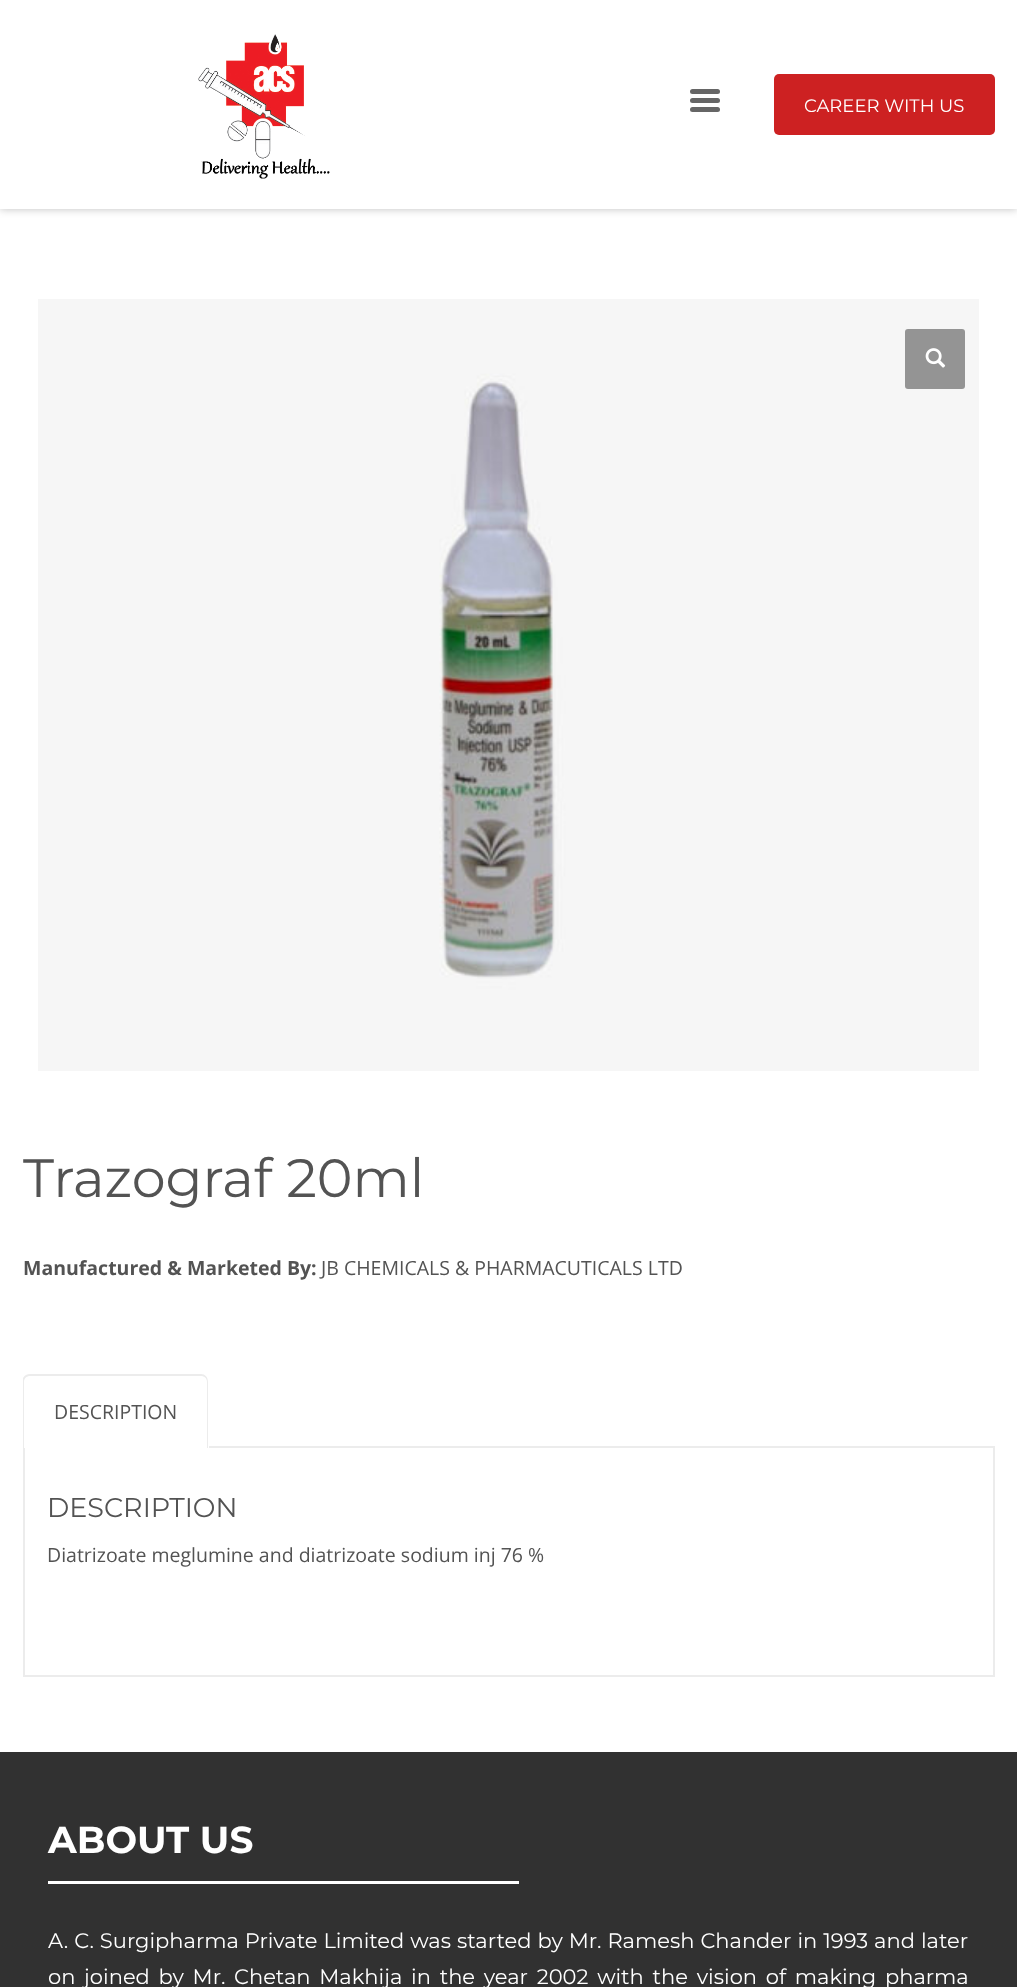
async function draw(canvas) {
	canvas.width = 1017;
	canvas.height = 1987;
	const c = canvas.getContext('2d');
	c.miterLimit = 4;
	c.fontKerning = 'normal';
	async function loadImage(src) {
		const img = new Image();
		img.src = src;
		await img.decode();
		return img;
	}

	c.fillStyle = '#fff';
	c.fillRect(0, 0, 1017, 1987);
	c.fillStyle = '#00000040';
	c.filter = 'blur(4px)';
	c.beginPath();
	c.rect(0, 0, 1017, 209);
	c.fill();
	c.filter = 'none';
	c.fillStyle = '#fff';
	c.fillRect(0, 0, 1017, 209);
	c.drawImage(await loadImage('img1.png'), 198, 34, 132, 145);
	c.fillStyle = '#666';
	c.beginPath();
	c.roundRect(690, 89, 30, 5, 2.5);
	c.fill();
	c.beginPath();
	c.roundRect(690, 98, 30, 5, 2.5);
	c.fill();
	c.beginPath();
	c.roundRect(690, 107, 30, 5, 2.5);
	c.fill();
	c.fillStyle = '#cd2122';
	c.beginPath();
	c.roundRect(774, 74, 221, 61, 5);
	c.fill();
	c.font = '18px Montserrat';
	c.fillStyle = '#fff';
	c.fillText('CAREER WITH US', 804, 112);
	c.drawImage(await loadImage('img2.png'), 38, 299, 941, 772);
	c.fillStyle = '#949494';
	c.beginPath();
	c.roundRect(905, 329, 60, 60, 3);
	c.fill();
	c.drawImage(await loadImage('img3.png'), 925, 348, 21, 20);
	c.font = '54px Montserrat';
	c.fillStyle = '#535353';
	c.fillText('Trazograf 20ml', 23, 1197);
	c.font = 'bold 19.5px Open Sans';
	c.fillText('Manufactured & Marketed By:', 23, 1275);
	c.font = '19.5px Open Sans';
	c.fillText('JB CHEMICALS & PHARMACUTICALS LTD', 321, 1275);
	c.strokeStyle = '#ececec';
	c.lineWidth = 2;
	c.strokeRect(24, 1447, 970, 229);
	c.fillStyle = '#fff';
	c.beginPath();
	c.roundRect(23, 1374, 186, 74, [6, 6, 0, 0]);
	c.fill();
	c.save();
	c.beginPath();
	c.rect(23, 1374, 972, 74);
	c.clip();
	c.fillStyle = '#ececec';
	c.beginPath();
	c.moveTo(30, 1374);
	c.lineTo(201, 1374);
	c.bezierCurveTo(205, 1374, 208, 1377, 208, 1382);
	c.lineTo(208, 1448);
	c.lineTo(22, 1448);
	c.lineTo(22, 1382);
	c.bezierCurveTo(22, 1377, 26, 1374, 30, 1374);
	c.closePath();
	c.moveTo(30, 1376);
	c.lineTo(201, 1376);
	c.bezierCurveTo(204, 1376, 207, 1378, 207, 1382);
	c.lineTo(207, 1448);
	c.lineTo(24, 1448);
	c.lineTo(24, 1382);
	c.bezierCurveTo(24, 1378, 27, 1376, 30, 1376);
	c.closePath();
	c.fill('evenodd');
	c.restore();
	c.fillStyle = '#535353';
	c.fillText('DESCRIPTION', 54, 1419);
	c.font = '27px Montserrat';
	c.fillText('DESCRIPTION', 47, 1517);
	c.font = '19.5px Open Sans';
	c.fillText('Diatrizoate meglumine and diatrizoate sodium inj 76 %', 47, 1562);
	c.fillStyle = '#313131';
	c.fillRect(0, 1752, 1017, 235);
	c.font = 'bold 37.5px Montserrat';
	c.fillStyle = '#fff';
	c.fillText('ABOUT US', 48, 1853);
	c.fillRect(48, 1881, 471, 3);
	c.wordSpacing = '0.5px';
	c.font = '21px Montserrat';
	c.fillText('A. C. Surgipharma Private Limited was started by Mr. Ramesh Chander in 1993 and later', 48, 1948);
	c.wordSpacing = '3.25px';
	c.fillText('on joined by Mr. Chetan Makhija in the year 2002 with the vision of making pharma', 48, 1984);
}

draw(document.querySelector('canvas'));
